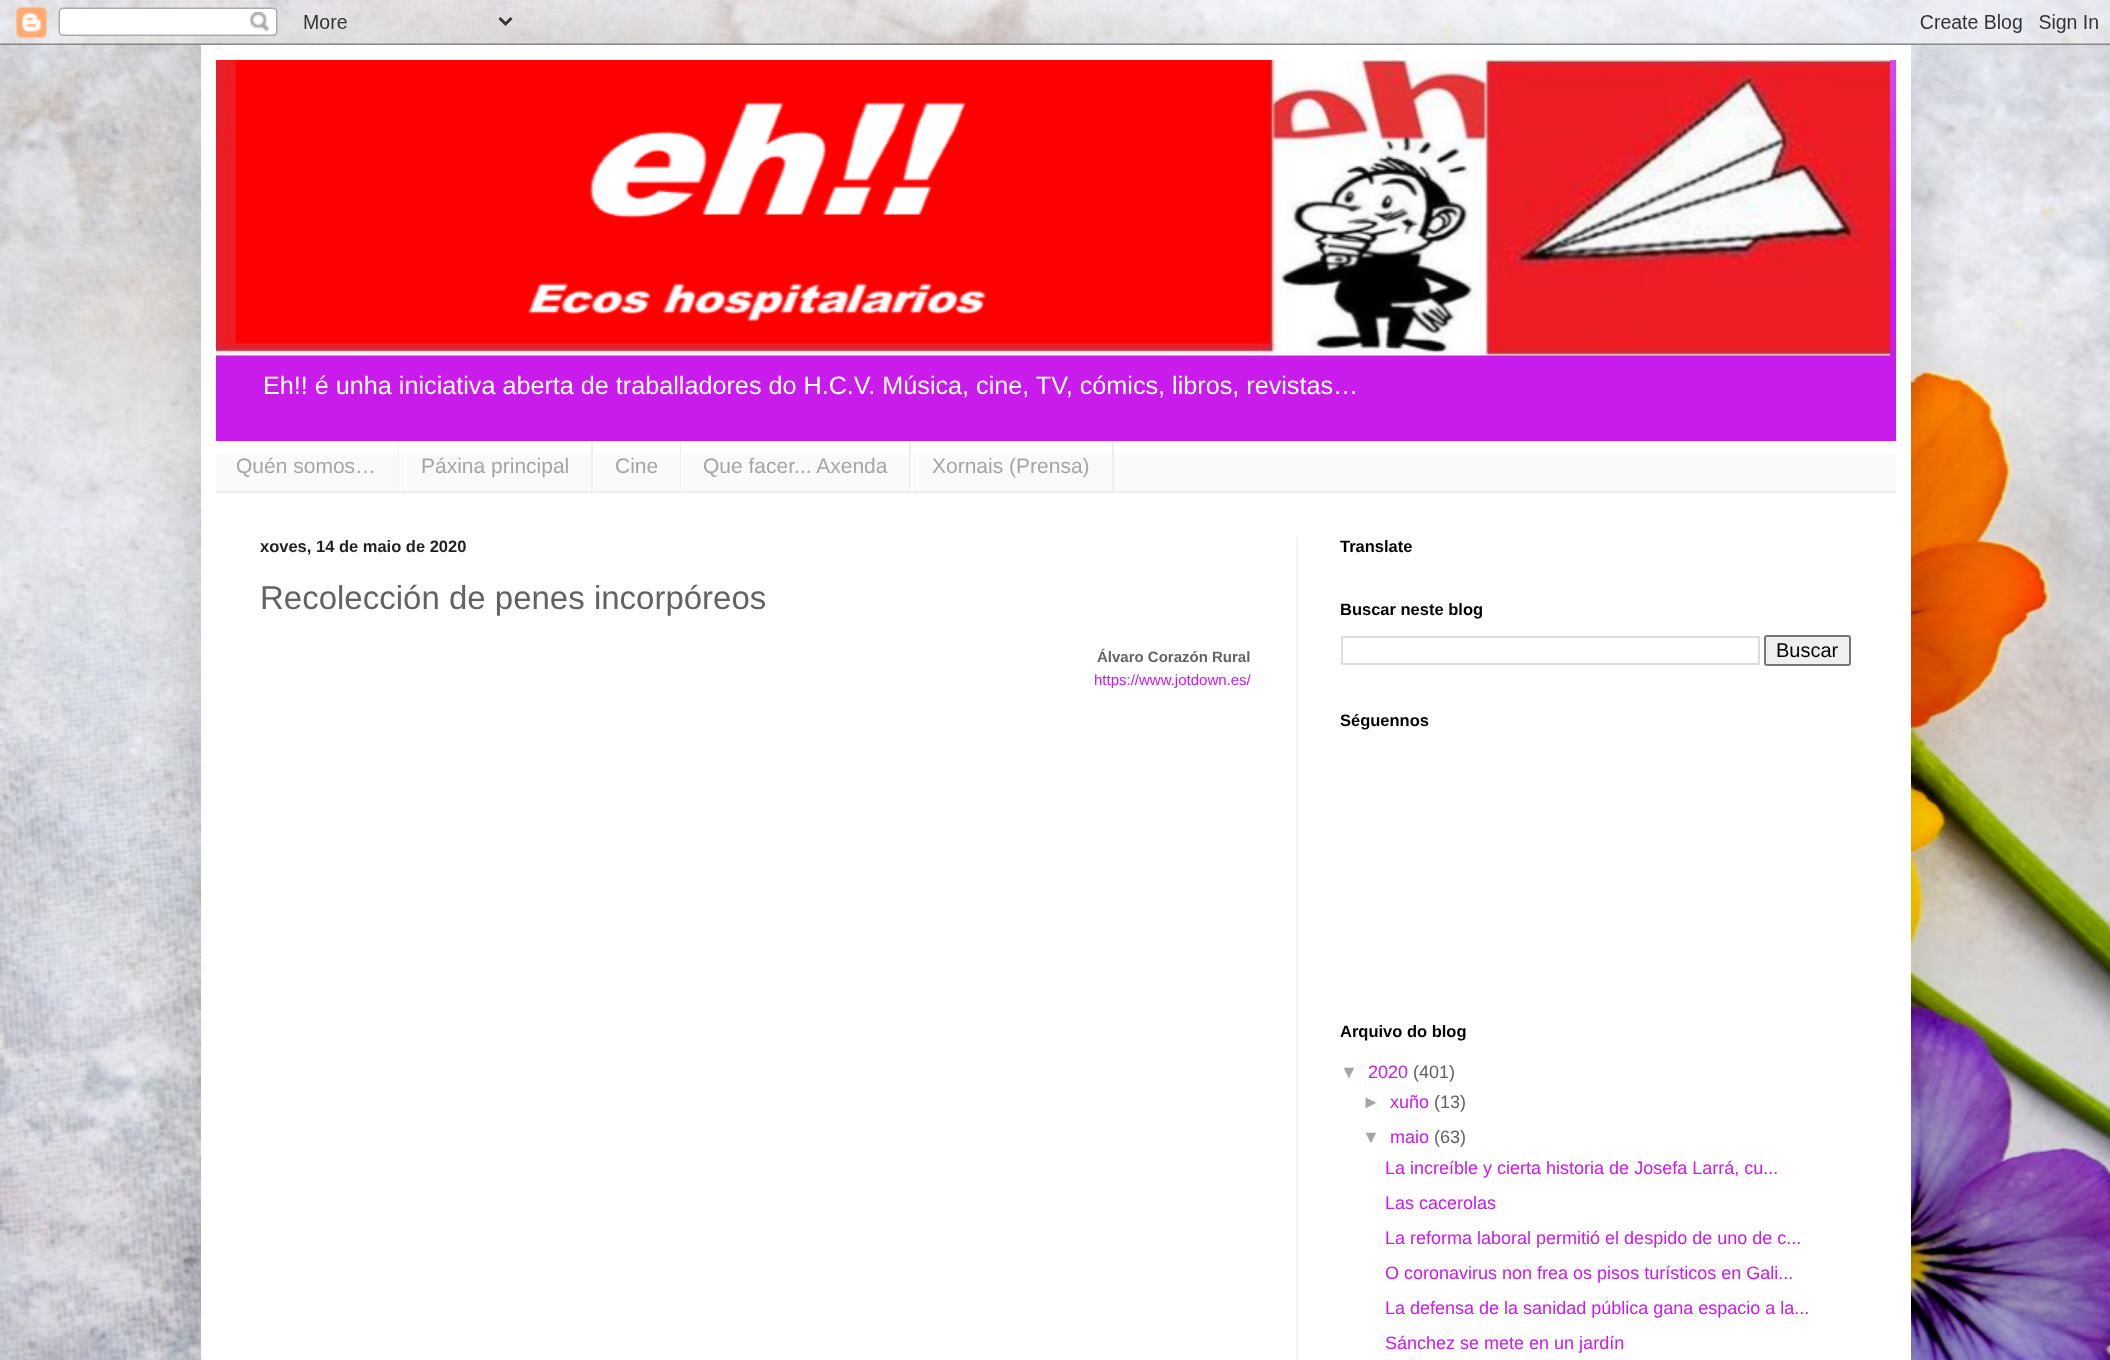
async function draw(canvas) {
	canvas.width = 2110;
	canvas.height = 1360;
	const c = canvas.getContext('2d');
	c.miterLimit = 4;
	c.fontKerning = 'normal';
	async function loadImage(src) {
		const img = new Image();
		img.src = src;
		await img.decode();
		return img;
	}

	c.fillStyle = '#fff';
	c.fillRect(0, 0, 2110, 1360);
	c.drawImage(await loadImage('img1.png'), 0, 0, 2110, 1360);
	c.fillStyle = '#00000026';
	c.filter = 'blur(30px)';
	c.beginPath();
	c.rect(201, 45, 1710, 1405);
	c.fill();
	c.filter = 'none';
	c.drawImage(await loadImage('img2.png'), 0, 0, 2110, 45);
	c.fillStyle = '#fff';
	c.fillRect(201, 45, 1710, 1315);
	c.fillStyle = '#c91bec';
	c.fillRect(216, 60, 1680, 381);
	c.drawImage(await loadImage('img3.png'), 1890, 60, 6, 199);
	c.drawImage(await loadImage('img4.png'), 216, 60, 1674, 296);
	c.font = '25.2px Liberation Sans';
	c.fillStyle = '#fff';
	c.fillText('Eh!! é unha iniciativa aberta de traballadores do H.C.V. Música, cine, TV, cómics, libros, revistas…', 263, 394);
	c.fillStyle = '#fafafa';
	c.fillRect(216, 441, 1680, 50);
	c.drawImage(await loadImage('img5.png'), 216, 441, 1680, 13);
	c.fillStyle = '#eee';
	c.fillRect(216, 491, 1680, 2);
	c.fillRect(398, 441, 1, 50);
	c.font = '21px Liberation Sans';
	c.fillStyle = '#a5a5a5';
	c.fillText('Quén somos…', 236, 473);
	c.fillStyle = '#eee';
	c.fillRect(591, 441, 2, 50);
	c.fillStyle = '#fff';
	c.fillRect(399, 454, 2, 37);
	c.fillStyle = '#a5a5a5';
	c.fillText('Páxina principal', 421, 473);
	c.fillStyle = '#eee';
	c.fillRect(680, 441, 1, 50);
	c.fillStyle = '#fff';
	c.fillRect(593, 454, 2, 37);
	c.fillStyle = '#a5a5a5';
	c.fillText('Cine', 615, 473);
	c.fillStyle = '#eee';
	c.fillRect(909, 441, 2, 50);
	c.fillStyle = '#fff';
	c.fillRect(681, 454, 2, 37);
	c.fillStyle = '#a5a5a5';
	c.fillText('Que facer... Axenda', 703, 473);
	c.fillStyle = '#eee';
	c.fillRect(1112, 441, 2, 50);
	c.fillStyle = '#fff';
	c.fillRect(911, 454, 2, 37);
	c.fillStyle = '#a5a5a5';
	c.fillText('Xornais (Prensa)', 932, 473);
	c.fillStyle = '#f3f3f3';
	c.fillRect(1296, 537, 2, 823);
	c.font = 'bold 16.5px Liberation Sans';
	c.fillStyle = '#222';
	c.fillText('xoves, 14 de maio de 2020', 260, 552);
	c.font = '33px Liberation Sans';
	c.fillStyle = '#626262';
	c.fillText('Recolección de penes incorpóreos', 260, 609);
	c.font = 'bold 15px Liberation Sans';
	c.fillText('Álvaro Corazón Rural', 1097, 662);
	c.font = '15px Liberation Sans';
	c.fillStyle = '#c91bec';
	c.fillText('https://www.jotdown.es/', 1094, 685);
	c.font = 'bold 16.5px Liberation Sans';
	c.fillStyle = '#000';
	c.fillText('Translate', 1340, 552);
	c.fillText('Buscar neste blog', 1340, 615);
	c.strokeStyle = '#ddd';
	c.lineWidth = 2;
	c.strokeRect(1342, 637, 417, 27);
	c.fillStyle = '#efefef';
	c.beginPath();
	c.roundRect(1765, 636, 85, 29, 2);
	c.fill();
	c.strokeStyle = '#767676';
	c.stroke();
	c.font = '20px Liberation Sans';
	c.fillStyle = '#000';
	c.fillText('Buscar', 1776, 657);
	c.font = 'bold 16.5px Liberation Sans';
	c.fillText('Séguennos', 1340, 726);
	c.fillText('Arquivo do blog', 1340, 1037);
	c.font = '18px Liberation Sans';
	c.fillStyle = '#a5a5a5';
	c.fillText('▼', 1340, 1078);
	c.fillStyle = '#c91bec';
	c.fillText('2020', 1368, 1078);
	c.fillStyle = '#626262';
	c.fillText('(401)', 1413, 1078);
	c.fillStyle = '#a5a5a5';
	c.fillText('►', 1362, 1108);
	c.fillStyle = '#c91bec';
	c.fillText('xuño', 1390, 1108);
	c.fillStyle = '#626262';
	c.fillText('(13)', 1434, 1108);
	c.fillStyle = '#a5a5a5';
	c.fillText('▼', 1362, 1143);
	c.fillStyle = '#c91bec';
	c.fillText('maio', 1390, 1143);
	c.fillStyle = '#626262';
	c.fillText('(63)', 1434, 1143);
	c.fillStyle = '#c91bec';
	for (const [text, x, y] of [
		['La increíble y cierta historia de Josefa Larrá, cu...', 1385, 1174],
		['Las cacerolas', 1385, 1209],
		['La reforma laboral permitió el despido de uno de c...', 1385, 1244],
		['O coronavirus non frea os pisos turísticos en Gali...', 1385, 1279],
		['La defensa de la sanidad pública gana espacio a la...', 1385, 1314],
		['Sánchez se mete en un jardín', 1385, 1349],
	]) {
		c.fillText(text, x, y);
	}
}

draw(document.querySelector('canvas'));
